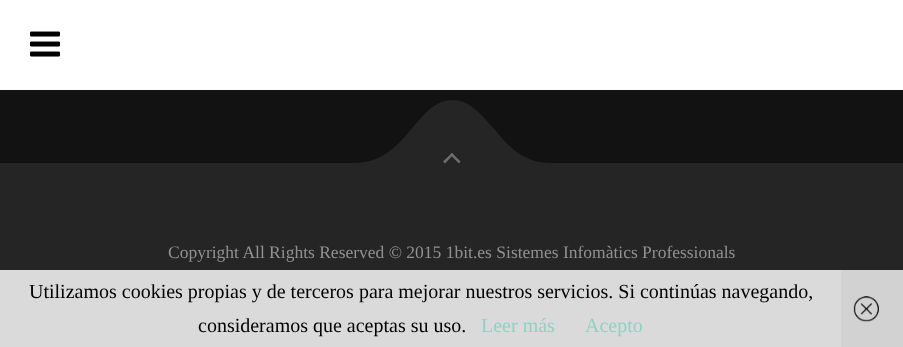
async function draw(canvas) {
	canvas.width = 903;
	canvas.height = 347;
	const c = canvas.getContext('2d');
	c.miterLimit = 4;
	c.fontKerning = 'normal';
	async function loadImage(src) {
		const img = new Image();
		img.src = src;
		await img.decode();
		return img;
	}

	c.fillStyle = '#121212';
	c.fillRect(0, 0, 903, 347);
	c.fillStyle = '#fff';
	c.fillRect(0, 0, 903, 90);
	c.drawImage(await loadImage('img1.png'), 30, 31, 30, 26);
	c.fillStyle = '#262526';
	c.fillRect(0, 163, 903, 107);
	c.beginPath();
	c.moveTo(452, 176);
	c.lineTo(506, 170);
	c.bezierCurveTo(532, 166, 557, 163, 551, 163);
	c.bezierCurveTo(524, 163, 509, 147, 496, 131);
	c.bezierCurveTo(482, 116, 471, 100, 452, 100);
	c.bezierCurveTo(434, 100, 423, 116, 409, 132);
	c.bezierCurveTo(396, 147, 381, 163, 354, 163);
	c.bezierCurveTo(348, 163, 346, 163, 358, 165);
	c.closePath();
	c.fill();
	c.fillStyle = '#6f6e6f';
	c.beginPath();
	c.moveTo(452, 153);
	c.lineTo(460.5, 161.5);
	c.lineTo(459, 163.5);
	c.lineTo(450, 154.5);
	c.closePath();
	c.fill();
	c.beginPath();
	c.moveTo(452, 153);
	c.lineTo(453.5, 154.5);
	c.lineTo(445, 163.5);
	c.lineTo(443, 161.5);
	c.closePath();
	c.fill();
	c.font = '17.5px Liberation Serif';
	c.fillStyle = '#919191';
	c.fillText('Copyright All Rights Reserved © 2015 1bit.es Sistemes Infomàtics Professionals', 168, 258);
	c.fillStyle = '#dadada';
	c.fillRect(0, 270, 841, 77);
	c.font = '20px Liberation Serif';
	c.fillStyle = '#000';
	c.fillText('Utilizamos cookies propias y de terceros para mejorar nuestros servicios. Si continúas navegando,', 29, 298);
	c.fillText('consideramos que aceptas su uso.', 198, 332);
	c.fillStyle = '#8fd2c1';
	c.fillText('Leer más', 481, 332);
	c.fillText('Acepto', 585, 332);
	c.fillStyle = '#d2d2d2';
	c.fillRect(841, 270, 62, 77);
	c.drawImage(await loadImage('img2.png'), 853, 296, 26, 26);
}

draw(document.querySelector('canvas'));
